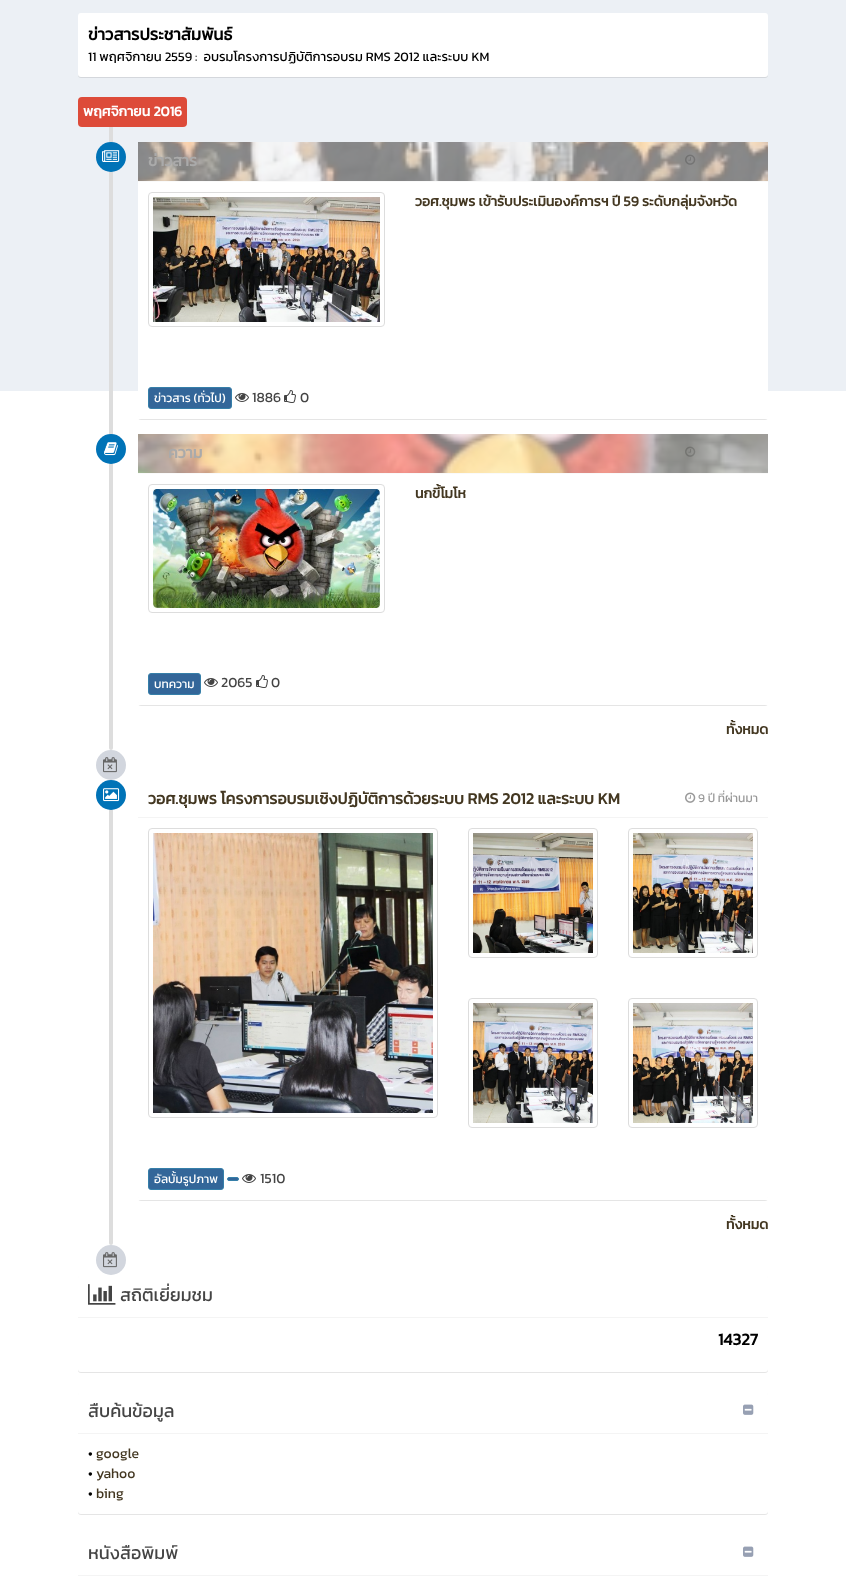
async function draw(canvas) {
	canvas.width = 846;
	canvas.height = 1591;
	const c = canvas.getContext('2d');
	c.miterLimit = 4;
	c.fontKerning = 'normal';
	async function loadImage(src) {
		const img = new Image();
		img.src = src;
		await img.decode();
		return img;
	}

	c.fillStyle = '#ecf0f5';
	c.fillRect(0, 0, 846, 1591);
	c.fillStyle = '#fff';
	c.fillRect(0, 391, 846, 1200);
	c.fillStyle = '#0000001a';
	c.filter = 'blur(0.5px)';
	c.beginPath();
	c.roundRect(78, 14, 690, 64, 3);
	c.fill();
	c.filter = 'none';
	c.fillStyle = '#fff';
	c.beginPath();
	c.roundRect(78, 13, 690, 64, 3);
	c.fill();
	c.font = 'bold 16.75px Kanit';
	c.fillStyle = '#000';
	c.fillText('ข่าวสารประชาสัมพันธ์', 88, 40);
	c.font = '13px Kanit';
	c.fillText('11 พฤศจิกายน 2559 :  อบรมโครงการปฏิบัติการอบรม RMS 2012 และระบบ KM', 88, 61);
	c.fillStyle = '#ddd';
	c.beginPath();
	c.roundRect(109, 97, 4, 653, 2);
	c.fill();
	c.fillStyle = '#dd4b39';
	c.beginPath();
	c.roundRect(78, 97, 109, 30, 4);
	c.fill();
	c.font = 'bold 14px Kanit';
	c.fillStyle = '#fff';
	c.fillText('พฤศจิกายน 2016', 83, 116);
	c.fillStyle = '#0073b7';
	c.beginPath();
	c.arc(111, 157, 15, 0, 2 * Math.PI);
	c.fill();
	c.drawImage(await loadImage('img1.png'), 102, 150, 18, 12);
	c.fillStyle = '#0000001a';
	c.filter = 'blur(0.5px)';
	c.beginPath();
	c.roundRect(138, 143, 630, 277, 3);
	c.fill();
	c.filter = 'none';
	c.fillStyle = '#fff';
	c.beginPath();
	c.roundRect(138, 142, 630, 277, 3);
	c.fill();
	c.drawImage(await loadImage('img3.png'), 685, 154, 11, 11);
	c.fillStyle = '#ffffff80';
	c.fillRect(138, 142, 630, 23);
	c.drawImage(await loadImage('img2.png'), 138, 142, 630, 39);
	c.fillStyle = '#fafafa';
	c.fillRect(138, 181, 630, 1);
	c.font = 'bold 16px Kanit';
	c.fillStyle = '#aaa';
	c.fillText('ข่าวสาร', 148, 166);
	c.beginPath();
	c.roundRect(148.5, 192.5, 236, 134, 3.5);
	c.strokeStyle = '#ddd';
	c.stroke();
	c.drawImage(await loadImage('img4.png'), 153, 197, 227, 125);
	c.font = 'bold 14px Kanit';
	c.fillStyle = '#433721';
	c.fillText('วอศ.ชุมพร เข้ารับประเมินองค์การฯ ปี 59 ระดับกลุ่มจังหวัด', 415, 206);
	c.fillStyle = '#fff';
	c.fillRect(138, 417, 630, 2);
	c.fillStyle = '#369';
	c.beginPath();
	c.roundRect(148.5, 387.5, 83, 21, 2.5);
	c.fill();
	c.strokeStyle = '#367fa9';
	c.stroke();
	c.font = '12px Kanit';
	c.fillStyle = '#fff';
	c.fillText('ข่าวสาร (ทั่วไป)', 154, 402);
	c.drawImage(await loadImage('img5.png'), 235, 393, 14, 9);
	c.font = '14px Kanit';
	c.fillStyle = '#444';
	c.fillText('1886', 252, 402);
	c.drawImage(await loadImage('img6.png'), 284, 390, 12, 13);
	c.fillText('0', 300, 402);
	c.fillStyle = '#0073b7';
	c.beginPath();
	c.arc(111, 449, 15, 0, 2 * Math.PI);
	c.fill();
	c.drawImage(await loadImage('img7.png'), 104, 442, 14, 14);
	c.fillStyle = '#0000001a';
	c.filter = 'blur(0.5px)';
	c.beginPath();
	c.roundRect(138, 435, 630, 271, 3);
	c.fill();
	c.filter = 'none';
	c.fillStyle = '#fff';
	c.beginPath();
	c.roundRect(138, 434, 630, 271, 3);
	c.fill();
	c.drawImage(await loadImage('img3.png'), 685, 446, 11, 11);
	c.fillStyle = '#ffffff80';
	c.fillRect(685, 446, 11, 11);
	c.drawImage(await loadImage('img8.png'), 138, 434, 630, 39);
	c.fillStyle = '#fafafa';
	c.fillRect(138, 473, 630, 1);
	c.font = 'bold 16px Kanit';
	c.fillStyle = '#aaa';
	c.fillText('ความ', 168, 458);
	c.beginPath();
	c.roundRect(148.5, 484.5, 236, 128, 3.5);
	c.strokeStyle = '#ddd';
	c.stroke();
	c.drawImage(await loadImage('img9.png'), 153, 489, 227, 119);
	c.font = 'bold 14px Kanit';
	c.fillStyle = '#433721';
	c.fillText('นกขี้โมโห', 415, 498);
	c.fillStyle = '#fff';
	c.fillRect(138, 703, 630, 2);
	c.fillStyle = '#369';
	c.beginPath();
	c.roundRect(148.5, 673.5, 52, 21, 2.5);
	c.fill();
	c.strokeStyle = '#367fa9';
	c.stroke();
	c.font = '12px Kanit';
	c.fillStyle = '#fff';
	c.fillText('บทความ', 154, 688);
	c.drawImage(await loadImage('img5.png'), 204, 678, 14, 9);
	c.font = '14px Kanit';
	c.fillStyle = '#444';
	c.fillText('2065', 221, 687);
	c.drawImage(await loadImage('img6.png'), 256, 675, 12, 13);
	c.fillText('0', 271, 687);
	c.font = 'bold 14px Kanit';
	c.fillStyle = '#433721';
	c.fillText('ทั้งหมด', 726, 734);
	c.fillStyle = '#d2d6de';
	c.beginPath();
	c.arc(111, 765, 15, 0, 2 * Math.PI);
	c.fill();
	c.drawImage(await loadImage('img10.png'), 103, 757, 14, 16);
	c.fillStyle = '#ddd';
	c.beginPath();
	c.roundRect(109, 780, 4, 465, 2);
	c.fill();
	c.fillStyle = '#0073b7';
	c.beginPath();
	c.arc(111, 795, 15, 0, 2 * Math.PI);
	c.fill();
	c.drawImage(await loadImage('img11.png'), 103, 788, 17, 14);
	c.fillStyle = '#0000001a';
	c.filter = 'blur(0.5px)';
	c.beginPath();
	c.roundRect(138, 781, 630, 420, 3);
	c.fill();
	c.filter = 'none';
	c.fillStyle = '#fff';
	c.beginPath();
	c.roundRect(138, 780, 630, 420, 3);
	c.fill();
	c.fillStyle = '#f4f4f4';
	c.fillRect(138, 817, 630, 1);
	c.font = 'bold 16px Kanit';
	c.fillStyle = '#433721';
	c.fillText('วอศ.ชุมพร โครงการอบรมเชิงปฏิบัติการด้วยระบบ RMS 2012 และระบบ KM', 148, 804);
	c.drawImage(await loadImage('img3.png'), 685, 792, 11, 11);
	c.font = '12px Kanit';
	c.fillStyle = '#999';
	c.fillText('9 ปี ที่ผ่านมา', 698, 802);
	c.fillStyle = '#fff';
	c.fillRect(138, 1198, 630, 2);
	c.beginPath();
	c.roundRect(148.5, 828.5, 289, 289, 3.5);
	c.strokeStyle = '#ddd';
	c.stroke();
	c.drawImage(await loadImage('img12.png'), 153, 833, 280, 280);
	c.beginPath();
	c.roundRect(468.5, 828.5, 129, 129, 3.5);
	c.stroke();
	c.drawImage(await loadImage('img13.png'), 473, 833, 120, 120);
	c.beginPath();
	c.roundRect(468.5, 998.5, 129, 129, 3.5);
	c.stroke();
	c.drawImage(await loadImage('img14.png'), 473, 1003, 120, 120);
	c.beginPath();
	c.roundRect(628.5, 828.5, 129, 129, 3.5);
	c.stroke();
	c.drawImage(await loadImage('img15.png'), 633, 833, 120, 120);
	c.beginPath();
	c.roundRect(628.5, 998.5, 129, 129, 3.5);
	c.stroke();
	c.drawImage(await loadImage('img16.png'), 633, 1003, 120, 120);
	c.fillStyle = '#369';
	c.beginPath();
	c.roundRect(148.5, 1168.5, 75, 21, 2.5);
	c.fill();
	c.strokeStyle = '#367fa9';
	c.stroke();
	c.fillStyle = '#fff';
	c.fillText('อัลบั้มรูปภาพ', 154, 1183);
	c.fillStyle = '#369';
	c.beginPath();
	c.roundRect(227.5, 1177.5, 11, 3, 1.5);
	c.fill();
	c.stroke();
	c.drawImage(await loadImage('img5.png'), 242, 1174, 14, 9);
	c.font = '14px Kanit';
	c.fillStyle = '#444';
	c.fillText('1510', 260, 1183);
	c.font = 'bold 14px Kanit';
	c.fillStyle = '#433721';
	c.fillText('ทั้งหมด', 726, 1229);
	c.fillStyle = '#d2d6de';
	c.beginPath();
	c.arc(111, 1260, 15, 0, 2 * Math.PI);
	c.fill();
	c.drawImage(await loadImage('img10.png'), 103, 1252, 14, 16);
	c.fillStyle = '#0000001a';
	c.filter = 'blur(0.5px)';
	c.beginPath();
	c.roundRect(78, 1276, 690, 97, 3);
	c.fill();
	c.filter = 'none';
	c.fillStyle = '#fff';
	c.beginPath();
	c.roundRect(78, 1275, 690, 97, 3);
	c.fill();
	c.fillStyle = '#f4f4f4';
	c.fillRect(78, 1317, 690, 1);
	c.drawImage(await loadImage('img17.png'), 88, 1284, 28, 21);
	c.font = '18px Kanit';
	c.fillStyle = '#444';
	c.fillText('สถิติเยี่ยมชม', 120, 1301);
	c.font = 'bold 16.75px Kanit';
	c.fillStyle = '#000';
	c.fillText('14327', 718, 1345);
	c.fillStyle = '#0000001a';
	c.filter = 'blur(0.5px)';
	c.beginPath();
	c.roundRect(78, 1393, 690, 122, 3);
	c.fill();
	c.filter = 'none';
	c.fillStyle = '#fff';
	c.beginPath();
	c.roundRect(78, 1392, 690, 122, 3);
	c.fill();
	c.fillStyle = '#f4f4f4';
	c.fillRect(78, 1433, 690, 1);
	c.font = '18px Kanit';
	c.fillStyle = '#444';
	c.fillText('สืบค้นข้อมูล', 88, 1417);
	c.drawImage(await loadImage('img18.png'), 743, 1404, 11, 11);
	c.font = '14px Kanit';
	c.fillStyle = '#000';
	c.fillText('•', 88, 1458);
	c.fillStyle = '#433721';
	c.fillText('google', 96, 1458);
	c.fillStyle = '#000';
	c.fillText('•', 88, 1478);
	c.fillStyle = '#433721';
	c.fillText('yahoo', 96, 1478);
	c.fillStyle = '#000';
	c.fillText('•', 88, 1498);
	c.fillStyle = '#433721';
	c.fillText('bing', 96, 1498);
	c.fillStyle = '#f4f4f4';
	c.fillRect(78, 1575, 690, 1);
	c.font = '18px Kanit';
	c.fillStyle = '#444';
	c.fillText('หนังสือพิมพ์', 88, 1559);
	c.drawImage(await loadImage('img18.png'), 743, 1546, 11, 11);
}

draw(document.querySelector('canvas'));
